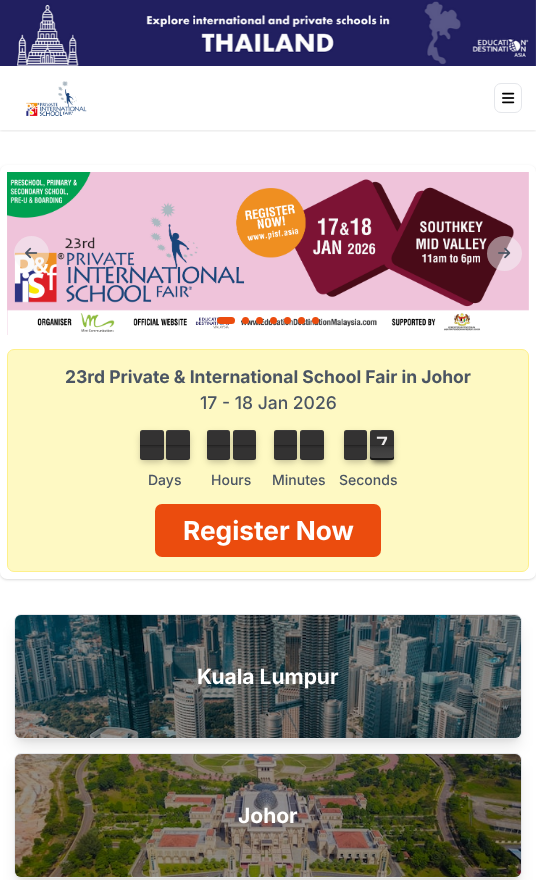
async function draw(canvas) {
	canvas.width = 536;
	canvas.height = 880;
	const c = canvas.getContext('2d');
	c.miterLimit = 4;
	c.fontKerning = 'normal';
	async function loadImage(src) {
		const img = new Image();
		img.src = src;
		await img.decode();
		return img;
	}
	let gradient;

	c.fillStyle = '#fff';
	c.fillRect(0, 0, 536, 880);
	c.save();
	c.beginPath();
	c.rect(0, 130, 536, 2);
	c.clip();
	c.fillStyle = '#0000001a';
	c.filter = 'blur(1.5px)';
	c.beginPath();
	c.rect(0, 1, 536, 130);
	c.fill();
	c.filter = 'none';
	c.restore();
	c.drawImage(await loadImage('img1.png'), 0, 0, 536, 66);
	c.drawImage(await loadImage('img2.png'), 26, 81, 61, 35);
	c.beginPath();
	c.roundRect(494.5, 83.5, 27, 29, 6.5);
	c.strokeStyle = '#e5e7eb';
	c.stroke();
	c.drawImage(await loadImage('img3.png'), 502, 92, 13, 12);
	c.fillStyle = '#0000001a';
	c.filter = 'blur(1px)';
	c.beginPath();
	c.roundRect(1, 167, 534, 412, 6);
	c.fill();
	c.filter = 'none';
	c.filter = 'blur(1.5px)';
	c.beginPath();
	c.roundRect(0, 166, 536, 414, 7);
	c.fill();
	c.filter = 'none';
	c.fillStyle = '#fff';
	c.beginPath();
	c.roundRect(0, 165, 536, 414, 7);
	c.fill();
	c.drawImage(await loadImage('img4.png'), 7, 172, 522, 163);
	c.fillStyle = '#f3f4f680';
	c.beginPath();
	c.arc(31.5, 253.5, 17.5, 0, 2 * Math.PI);
	c.fill();
	c.drawImage(await loadImage('img5.png'), 25, 247, 13, 12);
	c.beginPath();
	c.arc(504.5, 253.5, 17.5, 0, 2 * Math.PI);
	c.fill();
	c.drawImage(await loadImage('img6.png'), 498, 247, 13, 12);
	c.fillStyle = '#eb4c0e';
	c.beginPath();
	c.roundRect(217, 317, 18, 7, 3.5);
	c.fill();
	c.beginPath();
	c.arc(245.5, 320.5, 3.5, 0, 2 * Math.PI);
	c.fill();
	c.beginPath();
	c.arc(259.5, 320.5, 3.5, 0, 2 * Math.PI);
	c.fill();
	c.beginPath();
	c.arc(273.5, 320.5, 3.5, 0, 2 * Math.PI);
	c.fill();
	c.beginPath();
	c.arc(287.5, 320.5, 3.5, 0, 2 * Math.PI);
	c.fill();
	c.beginPath();
	c.arc(301.5, 320.5, 3.5, 0, 2 * Math.PI);
	c.fill();
	c.beginPath();
	c.arc(315.5, 320.5, 3.5, 0, 2 * Math.PI);
	c.fill();
	c.fillStyle = '#fef9c3';
	c.beginPath();
	c.roundRect(7.5, 349.5, 521, 222, 6.5);
	c.fill();
	c.strokeStyle = '#fef08a';
	c.stroke();
	c.font = 'bold 17.5px Inter';
	c.fillStyle = '#4b5563';
	c.fillText('23rd Private & International School Fair in Johor', 65, 383);
	c.font = '500 17.5px Inter';
	c.fillText('17 - 18 Jan 2026', 200, 409);
	c.fillStyle = '#00000040';
	c.filter = 'blur(3.5px)';
	c.beginPath();
	c.roundRect(141, 434, 22, 15, 2.5);
	c.fill();
	c.filter = 'none';
	c.filter = 'blur(3.5px)';
	c.beginPath();
	c.roundRect(141, 449, 22, 13, 2.5);
	c.fill();
	c.filter = 'none';
	c.filter = 'blur(3.5px)';
	c.beginPath();
	c.roundRect(167, 434, 22, 15, 2.5);
	c.fill();
	c.filter = 'none';
	c.filter = 'blur(3.5px)';
	c.beginPath();
	c.roundRect(167, 449, 22, 13, 2.5);
	c.fill();
	c.filter = 'none';
	c.fillStyle = '#333232';
	c.beginPath();
	c.roundRect(140, 430, 24, 15, [2.5, 2.5, 0, 0]);
	c.fill();
	c.fillStyle = '#ffffff0d';
	c.beginPath();
	c.moveTo(143, 431);
	c.lineTo(161, 431);
	c.bezierCurveTo(163, 431, 164, 432, 164, 434);
	c.bezierCurveTo(164, 429.5, 162.5, 430, 158.5, 430);
	c.lineTo(145.5, 430);
	c.bezierCurveTo(141.5, 430, 140, 429.5, 140, 434);
	c.bezierCurveTo(140, 432, 141, 431, 143, 431);
	c.closePath();
	c.fill();
	c.fillStyle = '#333232';
	c.beginPath();
	c.roundRect(140, 445, 24, 15, [0, 0, 2.5, 2.5]);
	c.fill();
	c.fillStyle = '#0000001a';
	c.beginPath();
	c.moveTo(140, 456);
	c.bezierCurveTo(140, 460.5, 141.5, 460, 145.5, 460);
	c.lineTo(158.5, 460);
	c.bezierCurveTo(162.5, 460, 164, 460.5, 164, 456);
	c.bezierCurveTo(164, 458, 163, 459, 161, 459);
	c.lineTo(143, 459);
	c.bezierCurveTo(141, 459, 140, 458, 140, 456);
	c.closePath();
	c.fill();
	gradient = c.createLinearGradient(152, 445, 152, 460);
	gradient.addColorStop(0.07, '#0000004d');
	gradient.addColorStop(0.07, '#00000026');
	gradient.addColorStop(0.3, '#00000000');
	c.fillStyle = gradient;
	c.fillRect(140, 445, 24, 3);
	c.fillStyle = '#333232';
	c.beginPath();
	c.roundRect(166, 430, 24, 15, [2.5, 2.5, 0, 0]);
	c.fill();
	c.fillStyle = '#ffffff0d';
	c.beginPath();
	c.moveTo(169, 431);
	c.lineTo(187, 431);
	c.bezierCurveTo(189, 431, 190, 432, 190, 434);
	c.bezierCurveTo(190, 429.5, 188.5, 430, 184.5, 430);
	c.lineTo(171.5, 430);
	c.bezierCurveTo(167.5, 430, 166, 429.5, 166, 434);
	c.bezierCurveTo(166, 432, 167, 431, 169, 431);
	c.closePath();
	c.fill();
	c.fillStyle = '#333232';
	c.beginPath();
	c.roundRect(166, 445, 24, 15, [0, 0, 2.5, 2.5]);
	c.fill();
	c.fillStyle = '#0000001a';
	c.beginPath();
	c.moveTo(166, 456);
	c.bezierCurveTo(166, 460.5, 167.5, 460, 171.5, 460);
	c.lineTo(184.5, 460);
	c.bezierCurveTo(188.5, 460, 190, 460.5, 190, 456);
	c.bezierCurveTo(190, 458, 189, 459, 187, 459);
	c.lineTo(169, 459);
	c.bezierCurveTo(167, 459, 166, 458, 166, 456);
	c.closePath();
	c.fill();
	gradient = c.createLinearGradient(178, 445, 178, 460);
	gradient.addColorStop(0.07, '#0000004d');
	gradient.addColorStop(0.07, '#00000026');
	gradient.addColorStop(0.3, '#00000000');
	c.fillStyle = gradient;
	c.fillRect(166, 445, 24, 3);
	c.font = '500 14px Inter';
	c.fillStyle = '#4b5563';
	c.fillText('Days', 148, 485);
	c.fillStyle = '#00000040';
	c.filter = 'blur(3.5px)';
	c.beginPath();
	c.roundRect(208, 434, 21, 15, 2.5);
	c.fill();
	c.filter = 'none';
	c.filter = 'blur(3.5px)';
	c.beginPath();
	c.roundRect(208, 449, 21, 13, 2.5);
	c.fill();
	c.filter = 'none';
	c.filter = 'blur(3.5px)';
	c.beginPath();
	c.roundRect(234, 434, 21, 15, 2.5);
	c.fill();
	c.filter = 'none';
	c.filter = 'blur(3.5px)';
	c.beginPath();
	c.roundRect(234, 449, 21, 13, 2.5);
	c.fill();
	c.filter = 'none';
	c.fillStyle = '#333232';
	c.beginPath();
	c.roundRect(207, 430, 23, 15, [2.5, 2.5, 0, 0]);
	c.fill();
	c.fillStyle = '#ffffff0d';
	c.beginPath();
	c.moveTo(210, 431);
	c.lineTo(227, 431);
	c.bezierCurveTo(229, 431, 230, 432, 230, 434);
	c.bezierCurveTo(230, 429.5, 228.5, 430, 224.5, 430);
	c.lineTo(212.5, 430);
	c.bezierCurveTo(208.5, 430, 207, 429.5, 207, 434);
	c.bezierCurveTo(207, 432, 208, 431, 210, 431);
	c.closePath();
	c.fill();
	c.fillStyle = '#333232';
	c.beginPath();
	c.roundRect(207, 445, 23, 15, [0, 0, 2.5, 2.5]);
	c.fill();
	c.fillStyle = '#0000001a';
	c.beginPath();
	c.moveTo(207, 456);
	c.bezierCurveTo(207, 460.5, 208.5, 460, 212.5, 460);
	c.lineTo(224.5, 460);
	c.bezierCurveTo(228.5, 460, 230, 460.5, 230, 456);
	c.bezierCurveTo(230, 458, 229, 459, 227, 459);
	c.lineTo(210, 459);
	c.bezierCurveTo(208, 459, 207, 458, 207, 456);
	c.closePath();
	c.fill();
	gradient = c.createLinearGradient(219, 445, 219, 460);
	gradient.addColorStop(0.07, '#0000004d');
	gradient.addColorStop(0.07, '#00000026');
	gradient.addColorStop(0.3, '#00000000');
	c.fillStyle = gradient;
	c.fillRect(207, 445, 23, 3);
	c.fillStyle = '#333232';
	c.beginPath();
	c.roundRect(233, 430, 23, 15, [2.5, 2.5, 0, 0]);
	c.fill();
	c.fillStyle = '#ffffff0d';
	c.beginPath();
	c.moveTo(236, 431);
	c.lineTo(253, 431);
	c.bezierCurveTo(255, 431, 256, 432, 256, 434);
	c.bezierCurveTo(256, 429.5, 254.5, 430, 250.5, 430);
	c.lineTo(238.5, 430);
	c.bezierCurveTo(234.5, 430, 233, 429.5, 233, 434);
	c.bezierCurveTo(233, 432, 234, 431, 236, 431);
	c.closePath();
	c.fill();
	c.fillStyle = '#333232';
	c.beginPath();
	c.roundRect(233, 445, 23, 15, [0, 0, 2.5, 2.5]);
	c.fill();
	c.fillStyle = '#0000001a';
	c.beginPath();
	c.moveTo(233, 456);
	c.bezierCurveTo(233, 460.5, 234.5, 460, 238.5, 460);
	c.lineTo(250.5, 460);
	c.bezierCurveTo(254.5, 460, 256, 460.5, 256, 456);
	c.bezierCurveTo(256, 458, 255, 459, 253, 459);
	c.lineTo(236, 459);
	c.bezierCurveTo(234, 459, 233, 458, 233, 456);
	c.closePath();
	c.fill();
	gradient = c.createLinearGradient(245, 445, 245, 460);
	gradient.addColorStop(0.07, '#0000004d');
	gradient.addColorStop(0.07, '#00000026');
	gradient.addColorStop(0.3, '#00000000');
	c.fillStyle = gradient;
	c.fillRect(233, 445, 23, 3);
	c.fillStyle = '#4b5563';
	c.fillText('Hours', 211, 485);
	c.fillStyle = '#00000040';
	c.filter = 'blur(3.5px)';
	c.beginPath();
	c.roundRect(275, 434, 21, 15, 2.5);
	c.fill();
	c.filter = 'none';
	c.filter = 'blur(3.5px)';
	c.beginPath();
	c.roundRect(275, 449, 21, 13, 2.5);
	c.fill();
	c.filter = 'none';
	c.filter = 'blur(3.5px)';
	c.beginPath();
	c.roundRect(301, 434, 22, 15, 2.5);
	c.fill();
	c.filter = 'none';
	c.filter = 'blur(3.5px)';
	c.beginPath();
	c.roundRect(301, 449, 22, 13, 2.5);
	c.fill();
	c.filter = 'none';
	c.fillStyle = '#333232';
	c.beginPath();
	c.roundRect(274, 430, 23, 15, [2.5, 2.5, 0, 0]);
	c.fill();
	c.fillStyle = '#ffffff0d';
	c.beginPath();
	c.moveTo(277, 431);
	c.lineTo(294, 431);
	c.bezierCurveTo(296, 431, 297, 432, 297, 434);
	c.bezierCurveTo(297, 429.5, 295.5, 430, 291.5, 430);
	c.lineTo(279.5, 430);
	c.bezierCurveTo(275.5, 430, 274, 429.5, 274, 434);
	c.bezierCurveTo(274, 432, 275, 431, 277, 431);
	c.closePath();
	c.fill();
	c.fillStyle = '#333232';
	c.beginPath();
	c.roundRect(274, 445, 23, 15, [0, 0, 2.5, 2.5]);
	c.fill();
	c.fillStyle = '#0000001a';
	c.beginPath();
	c.moveTo(274, 456);
	c.bezierCurveTo(274, 460.5, 275.5, 460, 279.5, 460);
	c.lineTo(291.5, 460);
	c.bezierCurveTo(295.5, 460, 297, 460.5, 297, 456);
	c.bezierCurveTo(297, 458, 296, 459, 294, 459);
	c.lineTo(277, 459);
	c.bezierCurveTo(275, 459, 274, 458, 274, 456);
	c.closePath();
	c.fill();
	gradient = c.createLinearGradient(286, 445, 286, 460);
	gradient.addColorStop(0.07, '#0000004d');
	gradient.addColorStop(0.07, '#00000026');
	gradient.addColorStop(0.3, '#00000000');
	c.fillStyle = gradient;
	c.fillRect(274, 445, 23, 3);
	c.fillStyle = '#333232';
	c.beginPath();
	c.roundRect(300, 430, 24, 15, [2.5, 2.5, 0, 0]);
	c.fill();
	c.fillStyle = '#ffffff0d';
	c.beginPath();
	c.moveTo(303, 431);
	c.lineTo(321, 431);
	c.bezierCurveTo(323, 431, 324, 432, 324, 434);
	c.bezierCurveTo(324, 429.5, 322.5, 430, 318.5, 430);
	c.lineTo(305.5, 430);
	c.bezierCurveTo(301.5, 430, 300, 429.5, 300, 434);
	c.bezierCurveTo(300, 432, 301, 431, 303, 431);
	c.closePath();
	c.fill();
	c.fillStyle = '#333232';
	c.beginPath();
	c.roundRect(300, 445, 24, 15, [0, 0, 2.5, 2.5]);
	c.fill();
	c.fillStyle = '#0000001a';
	c.beginPath();
	c.moveTo(300, 456);
	c.bezierCurveTo(300, 460.5, 301.5, 460, 305.5, 460);
	c.lineTo(318.5, 460);
	c.bezierCurveTo(322.5, 460, 324, 460.5, 324, 456);
	c.bezierCurveTo(324, 458, 323, 459, 321, 459);
	c.lineTo(303, 459);
	c.bezierCurveTo(301, 459, 300, 458, 300, 456);
	c.closePath();
	c.fill();
	gradient = c.createLinearGradient(312, 445, 312, 460);
	gradient.addColorStop(0.07, '#0000004d');
	gradient.addColorStop(0.07, '#00000026');
	gradient.addColorStop(0.3, '#00000000');
	c.fillStyle = gradient;
	c.fillRect(300, 445, 24, 3);
	c.fillStyle = '#4b5563';
	c.fillText('Minutes', 272, 485);
	c.fillStyle = '#00000040';
	c.filter = 'blur(3.5px)';
	c.beginPath();
	c.roundRect(345, 434, 21, 15, 2.5);
	c.fill();
	c.filter = 'none';
	c.filter = 'blur(3.5px)';
	c.beginPath();
	c.roundRect(345, 449, 21, 13, 2.5);
	c.fill();
	c.filter = 'none';
	c.filter = 'blur(3.5px)';
	c.beginPath();
	c.roundRect(371, 434, 22, 15, 2.5);
	c.fill();
	c.filter = 'none';
	c.filter = 'blur(3.5px)';
	c.beginPath();
	c.roundRect(371, 449, 22, 13, 2.5);
	c.fill();
	c.filter = 'none';
	c.fillStyle = '#00000057';
	c.filter = 'blur(3.5px)';
	c.beginPath();
	c.rect(373, 452, 17, 10);
	c.fill();
	c.filter = 'none';
	c.fillStyle = '#333232';
	c.beginPath();
	c.roundRect(344, 430, 23, 15, [2.5, 2.5, 0, 0]);
	c.fill();
	c.fillStyle = '#ffffff0d';
	c.beginPath();
	c.moveTo(347, 431);
	c.lineTo(364, 431);
	c.bezierCurveTo(366, 431, 367, 432, 367, 434);
	c.bezierCurveTo(367, 429.5, 365.5, 430, 361.5, 430);
	c.lineTo(349.5, 430);
	c.bezierCurveTo(345.5, 430, 344, 429.5, 344, 434);
	c.bezierCurveTo(344, 432, 345, 431, 347, 431);
	c.closePath();
	c.fill();
	c.fillStyle = '#0000003b';
	c.filter = 'blur(2px)';
	c.beginPath();
	c.rect(373, 452, 17, 10);
	c.fill();
	c.filter = 'none';
	c.fillStyle = '#333232';
	c.beginPath();
	c.roundRect(344, 445, 23, 15, [0, 0, 2.5, 2.5]);
	c.fill();
	c.fillStyle = '#0000001a';
	c.beginPath();
	c.moveTo(344, 456);
	c.bezierCurveTo(344, 460.5, 345.5, 460, 349.5, 460);
	c.lineTo(361.5, 460);
	c.bezierCurveTo(365.5, 460, 367, 460.5, 367, 456);
	c.bezierCurveTo(367, 458, 366, 459, 364, 459);
	c.lineTo(347, 459);
	c.bezierCurveTo(345, 459, 344, 458, 344, 456);
	c.closePath();
	c.fill();
	gradient = c.createLinearGradient(356, 445, 356, 460);
	gradient.addColorStop(0.07, '#0000004d');
	gradient.addColorStop(0.07, '#00000026');
	gradient.addColorStop(0.3, '#00000000');
	c.fillStyle = gradient;
	c.fillRect(344, 445, 23, 3);
	c.fillStyle = '#333232';
	c.beginPath();
	c.roundRect(370, 430, 24, 15, [2.5, 2.5, 0, 0]);
	c.fill();
	c.fillStyle = '#ffffff0d';
	c.beginPath();
	c.moveTo(373, 431);
	c.lineTo(391, 431);
	c.bezierCurveTo(393, 431, 394, 432, 394, 434);
	c.bezierCurveTo(394, 429.5, 392.5, 430, 388.5, 430);
	c.lineTo(375.5, 430);
	c.bezierCurveTo(371.5, 430, 370, 429.5, 370, 434);
	c.bezierCurveTo(370, 432, 371, 431, 373, 431);
	c.closePath();
	c.fill();
	c.letterSpacing = '5px';
	c.font = '500 21px Inter';
	c.fillStyle = '#edebeb';
	c.fillText('7', 376, 452);
	c.fillStyle = '#333232';
	c.beginPath();
	c.roundRect(370, 445, 24, 15, [0, 0, 2.5, 2.5]);
	c.fill();
	c.fillStyle = '#0000001a';
	c.beginPath();
	c.moveTo(370, 456);
	c.bezierCurveTo(370, 460.5, 371.5, 460, 375.5, 460);
	c.lineTo(388.5, 460);
	c.bezierCurveTo(392.5, 460, 394, 460.5, 394, 456);
	c.bezierCurveTo(394, 458, 393, 459, 391, 459);
	c.lineTo(373, 459);
	c.bezierCurveTo(371, 459, 370, 458, 370, 456);
	c.closePath();
	c.fill();
	gradient = c.createLinearGradient(382, 445, 382, 460);
	gradient.addColorStop(0, '#000000b3');
	gradient.addColorStop(1, '#00000080');
	c.fillStyle = gradient;
	c.beginPath();
	c.roundRect(370, 445, 24, 15, [0, 0, 2.5, 2.5]);
	c.fill();
	c.fillStyle = '#333232';
	c.beginPath();
	c.roundRect(370, 445, 24, 13, [0, 0, 2.5, 2.5]);
	c.fill();
	gradient = c.createLinearGradient(382, 445, 382, 458);
	gradient.addColorStop(0.07, '#0000004d');
	gradient.addColorStop(0.07, '#00000026');
	gradient.addColorStop(0.3, '#00000000');
	c.fillStyle = gradient;
	c.fillRect(370, 445, 24, 3);
	gradient = c.createLinearGradient(382, 445, 382, 458);
	gradient.addColorStop(0, '#ffffff0a');
	gradient.addColorStop(1, '#ffffff17');
	c.fillStyle = gradient;
	c.beginPath();
	c.roundRect(370, 445, 24, 13, [0, 0, 2.5, 2.5]);
	c.fill();
	c.letterSpacing = '0px';
	c.font = '500 14px Inter';
	c.fillStyle = '#4b5563';
	c.fillText('Seconds', 339, 485);
	c.fillStyle = '#eb4c0e';
	c.beginPath();
	c.roundRect(155, 504, 226, 53, 7);
	c.fill();
	c.font = 'bold 26.25px Inter';
	c.fillStyle = '#fff';
	c.fillText('Register Now', 183, 540);
	c.fillStyle = '#0000001a';
	c.filter = 'blur(3px)';
	c.beginPath();
	c.roundRect(18, 622, 500, 117, 3);
	c.fill();
	c.filter = 'none';
	c.filter = 'blur(7.5px)';
	c.beginPath();
	c.roundRect(17, 627, 502, 119, 4);
	c.fill();
	c.filter = 'none';
	c.beginPath();
	c.roundRect(14.5, 614.5, 507, 124, 6.5);
	c.strokeStyle = '#e5e7eb';
	c.stroke();
	c.drawImage(await loadImage('img7.png'), 15, 615, 506, 123);
	c.fillStyle = '#00000066';
	c.beginPath();
	c.roundRect(15, 615, 506, 123, 6);
	c.fill();
	c.font = 'bold 21px Inter';
	c.fillStyle = '#fff';
	c.fillText('Kuala Lumpur', 197, 684);
	c.fillStyle = '#0000001a';
	c.filter = 'blur(3px)';
	c.beginPath();
	c.roundRect(18, 761, 500, 117, 3);
	c.fill();
	c.filter = 'none';
	c.filter = 'blur(7.5px)';
	c.beginPath();
	c.roundRect(17, 766, 502, 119, 4);
	c.fill();
	c.filter = 'none';
	c.beginPath();
	c.roundRect(14.5, 753.5, 507, 124, 6.5);
	c.stroke();
	c.drawImage(await loadImage('img8.png'), 15, 754, 506, 123);
	c.fillStyle = '#00000066';
	c.beginPath();
	c.roundRect(15, 754, 506, 123, 6);
	c.fill();
	c.fillStyle = '#fff';
	c.fillText('Johor', 238, 823);
}

draw(document.querySelector('canvas'));
